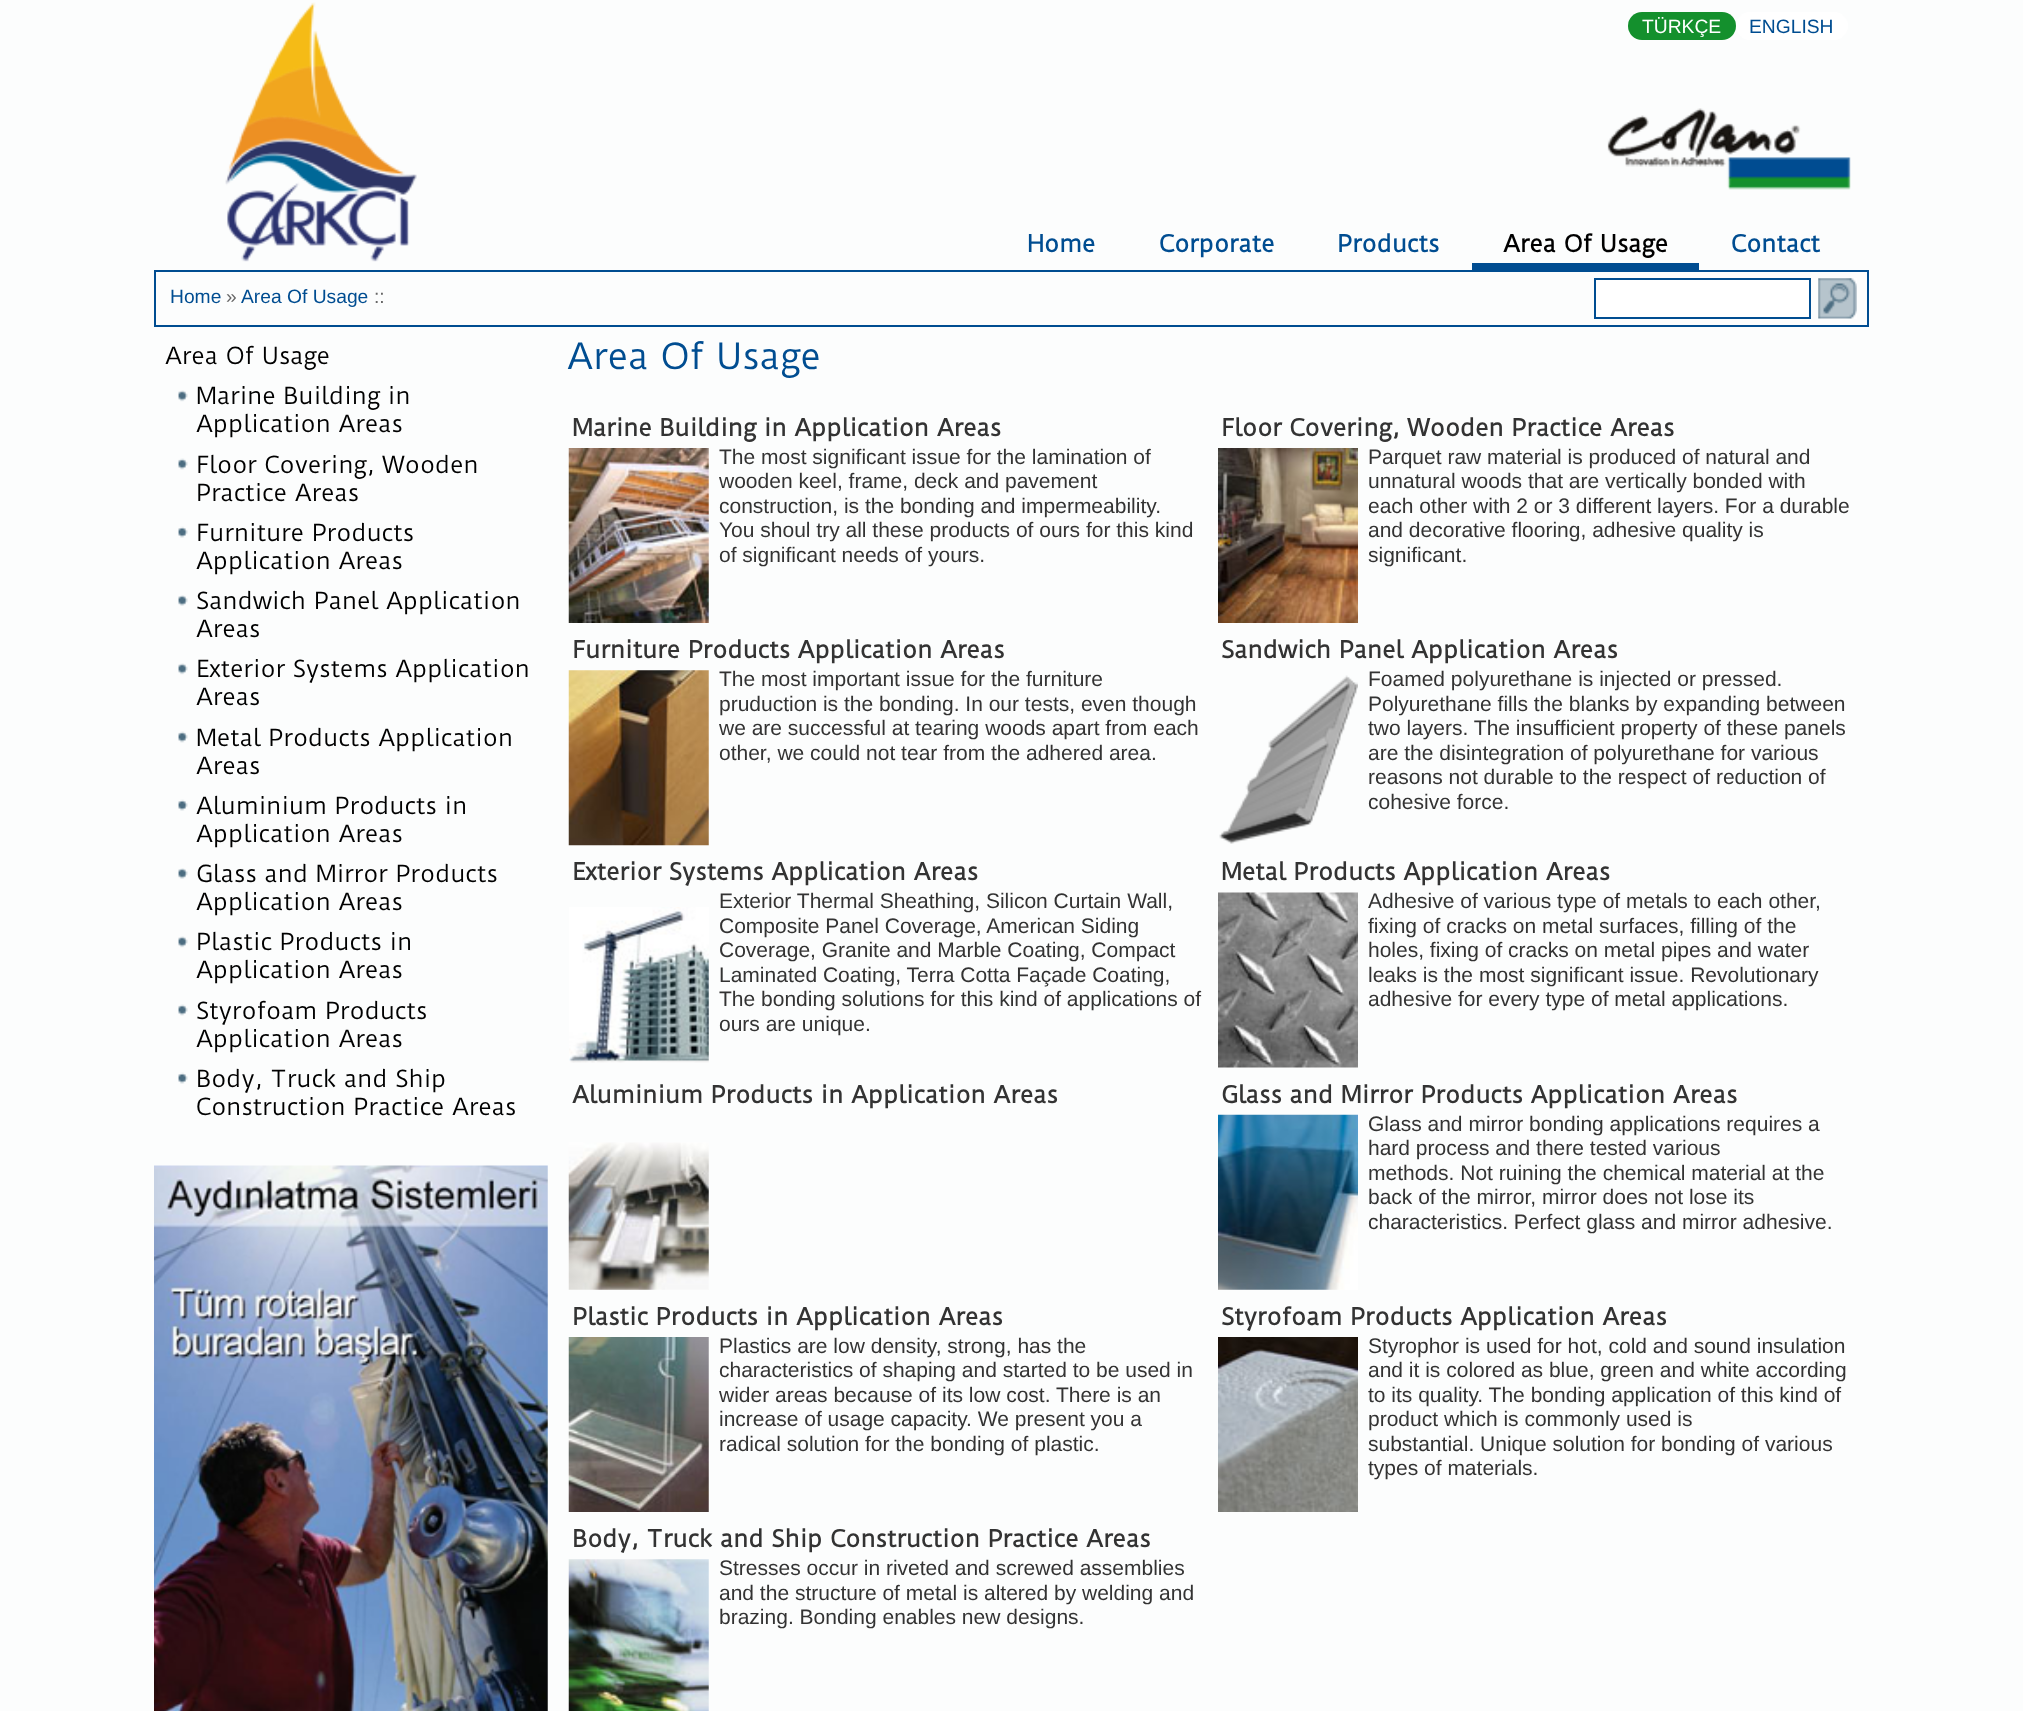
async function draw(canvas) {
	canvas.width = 2023;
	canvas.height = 1711;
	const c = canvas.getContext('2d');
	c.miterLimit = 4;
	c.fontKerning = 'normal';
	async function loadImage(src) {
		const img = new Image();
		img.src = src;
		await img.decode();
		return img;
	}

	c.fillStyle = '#fcfdfd';
	c.fillRect(0, 0, 2023, 1711);
	c.drawImage(await loadImage('img1.png'), 225, 2, 192, 260);
	c.drawImage(await loadImage('img2.png'), 1607, 108, 244, 82);
	c.fillStyle = '#14902d';
	c.beginPath();
	c.roundRect(1628, 12, 108, 28, 14);
	c.fill();
	c.font = '19.25px Liberation Sans';
	c.fillStyle = '#fff';
	c.fillText('TÜRKÇE', 1642, 33);
	c.beginPath();
	c.roundRect(1736, 12, 112, 28, 14);
	c.fill();
	c.fillStyle = '#004d91';
	c.fillText('ENGLISH', 1749, 33);
	c.font = 'bold 22.75px Duru Sans';
	for (const [text, x, y] of [
		['Home', 1027, 252],
		['Corporate', 1159, 252],
		['Products', 1337, 252],
	]) {
		c.fillText(text, x, y);
	}
	c.fillRect(1472, 263, 227, 7);
	c.fillStyle = '#000';
	c.fillText('Area Of Usage', 1503, 252);
	c.fillStyle = '#004d91';
	c.fillText('Contact', 1731, 252);
	c.strokeStyle = '#004d91';
	c.lineWidth = 2;
	c.strokeRect(155, 271, 1713, 55);
	c.font = '19.25px Liberation Sans';
	c.fillText('Home', 170, 303);
	c.fillStyle = '#666';
	c.fillText('»', 226, 303);
	c.fillStyle = '#004d91';
	c.fillText('Area Of Usage', 241, 303);
	c.fillStyle = '#666';
	c.fillText('::', 374, 303);
	c.fillStyle = '#fff';
	c.beginPath();
	c.rect(1595, 279, 215, 39);
	c.fill();
	c.stroke();
	c.fillRect(1818, 278, 39, 41);
	c.drawImage(await loadImage('img3.png'), 1818, 278, 39, 41);
	c.font = '22.75px Duru Sans';
	c.fillStyle = '#000';
	c.fillText('Area Of Usage', 165, 364);
	c.drawImage(await loadImage('img4.png'), 178, 390, 10, 12);
	c.fillText('Marine Building in', 196, 404);
	c.fillText('Application Areas', 196, 432);
	c.drawImage(await loadImage('img5.png'), 178, 458, 10, 12);
	c.fillText('Floor Covering, Wooden', 196, 473);
	c.fillText('Practice Areas', 196, 501);
	c.drawImage(await loadImage('img6.png'), 178, 526, 10, 12);
	c.fillText('Furniture Products', 196, 541);
	c.fillText('Application Areas', 196, 569);
	c.drawImage(await loadImage('img7.png'), 178, 595, 10, 11);
	c.fillText('Sandwich Panel Application', 196, 609);
	c.fillText('Areas', 196, 637);
	c.drawImage(await loadImage('img4.png'), 178, 663, 10, 12);
	c.fillText('Exterior Systems Application', 196, 677);
	c.fillText('Areas', 196, 705);
	c.drawImage(await loadImage('img5.png'), 178, 731, 10, 12);
	c.fillText('Metal Products Application', 196, 746);
	c.fillText('Areas', 196, 774);
	c.drawImage(await loadImage('img6.png'), 178, 799, 10, 12);
	c.fillText('Aluminium Products in', 196, 814);
	c.fillText('Application Areas', 196, 842);
	c.drawImage(await loadImage('img7.png'), 178, 868, 10, 11);
	c.fillText('Glass and Mirror Products', 196, 882);
	c.fillText('Application Areas', 196, 910);
	c.drawImage(await loadImage('img4.png'), 178, 936, 10, 12);
	c.fillText('Plastic Products in', 196, 950);
	c.fillText('Application Areas', 196, 978);
	c.drawImage(await loadImage('img5.png'), 178, 1004, 10, 12);
	c.fillText('Styrofoam Products', 196, 1019);
	c.fillText('Application Areas', 196, 1047);
	c.drawImage(await loadImage('img6.png'), 178, 1072, 10, 12);
	c.fillText('Body, Truck and Ship', 196, 1087);
	c.fillText('Construction Practice Areas', 196, 1115);
	c.drawImage(await loadImage('img8.png'), 154, 1165, 394, 546);
	c.font = '35px Duru Sans';
	c.fillStyle = '#004d91';
	c.fillText('Area Of Usage', 567, 369);
	c.font = 'bold 22.75px Duru Sans';
	c.fillStyle = '#333';
	c.fillText('Marine Building in Application Areas', 572, 436);
	c.drawImage(await loadImage('img9.png'), 568, 448, 141, 175);
	c.font = '21px Liberation Sans';
	for (const [text, x, y] of [
		['The most significant issue for the lamination of', 719, 464],
		['wooden keel, frame, deck and pavement', 719, 488],
		['construction, is the bonding and impermeability.', 719, 513],
		['You shoul try all these products of ours for this kind', 719, 537],
		['of significant needs of yours.', 719, 562],
	]) {
		c.fillText(text, x, y);
	}
	c.font = 'bold 22.75px Duru Sans';
	c.fillText('Floor Covering, Wooden Practice Areas', 1221, 436);
	c.drawImage(await loadImage('img10.png'), 1218, 448, 140, 175);
	c.font = '21px Liberation Sans';
	for (const [text, x, y] of [
		['Parquet raw material is produced of natural and', 1368, 464],
		['unnatural woods that are vertically bonded with', 1368, 488],
		['each other with 2 or 3 different layers. For a durable', 1368, 513],
		['and decorative flooring, adhesive quality is', 1368, 537],
		['significant.', 1368, 562],
	]) {
		c.fillText(text, x, y);
	}
	c.font = 'bold 22.75px Duru Sans';
	c.fillText('Furniture Products Application Areas', 572, 658);
	c.drawImage(await loadImage('img11.png'), 568, 670, 141, 176);
	c.font = '21px Liberation Sans';
	for (const [text, x, y] of [
		['The most important issue for the furniture', 719, 686],
		['pruduction is the bonding. In our tests, even though', 719, 711],
		['we are successful at tearing woods apart from each', 719, 735],
		['other, we could not tear from the adhered area.', 719, 760],
	]) {
		c.fillText(text, x, y);
	}
	c.font = 'bold 22.75px Duru Sans';
	c.fillText('Sandwich Panel Application Areas', 1221, 658);
	c.drawImage(await loadImage('img12.png'), 1219, 675, 139, 169);
	c.font = '21px Liberation Sans';
	for (const [text, x, y] of [
		['Foamed polyurethane is injected or pressed.', 1368, 686],
		['Polyurethane fills the blanks by expanding between', 1368, 711],
		['two layers. The insufficient property of these panels', 1368, 735],
		['are the disintegration of polyurethane for various', 1368, 760],
		['reasons not durable to the respect of reduction of', 1368, 784],
		['cohesive force.', 1368, 809],
	]) {
		c.fillText(text, x, y);
	}
	c.font = 'bold 22.75px Duru Sans';
	c.fillText('Exterior Systems Application Areas', 572, 880);
	c.drawImage(await loadImage('img13.png'), 569, 907, 140, 156);
	c.font = '21px Liberation Sans';
	for (const [text, x, y] of [
		['Exterior Thermal Sheathing, Silicon Curtain Wall,', 719, 908],
		['Composite Panel Coverage, American Siding', 719, 933],
		['Coverage, Granite and Marble Coating, Compact', 719, 957],
		['Laminated Coating, Terra Cotta Façade Coating,', 719, 982],
		['The bonding solutions for this kind of applications of', 719, 1006],
		['ours are unique.', 719, 1031],
	]) {
		c.fillText(text, x, y);
	}
	c.font = 'bold 22.75px Duru Sans';
	c.fillText('Metal Products Application Areas', 1221, 880);
	c.drawImage(await loadImage('img14.png'), 1218, 892, 140, 176);
	c.font = '21px Liberation Sans';
	for (const [text, x, y] of [
		['Adhesive of various type of metals to each other,', 1368, 908],
		['fixing of cracks on metal surfaces, filling of the', 1368, 933],
		['holes, fixing of cracks on metal pipes and water', 1368, 957],
		['leaks is the most significant issue. Revolutionary', 1368, 982],
		['adhesive for every type of metal applications.', 1368, 1006],
	]) {
		c.fillText(text, x, y);
	}
	c.font = 'bold 22.75px Duru Sans';
	c.fillText('Aluminium Products in Application Areas', 572, 1103);
	c.drawImage(await loadImage('img15.png'), 568, 1142, 141, 148);
	c.fillText('Glass and Mirror Products Application Areas', 1221, 1103);
	c.drawImage(await loadImage('img16.png'), 1218, 1114, 140, 176);
	c.font = '21px Liberation Sans';
	for (const [text, x, y] of [
		['Glass and mirror bonding applications requires a', 1368, 1131],
		['hard process and there tested various', 1368, 1155],
		['methods. Not ruining the chemical material at the', 1368, 1180],
		['back of the mirror, mirror does not lose its', 1368, 1204],
		['characteristics. Perfect glass and mirror adhesive.', 1368, 1229],
	]) {
		c.fillText(text, x, y);
	}
	c.font = 'bold 22.75px Duru Sans';
	c.fillText('Plastic Products in Application Areas', 572, 1325);
	c.drawImage(await loadImage('img17.png'), 568, 1337, 141, 175);
	c.font = '21px Liberation Sans';
	for (const [text, x, y] of [
		['Plastics are low density, strong, has the', 719, 1353],
		['characteristics of shaping and started to be used in', 719, 1377],
		['wider areas because of its low cost. There is an', 719, 1402],
		['increase of usage capacity. We present you a', 719, 1426],
		['radical solution for the bonding of plastic.', 719, 1451],
	]) {
		c.fillText(text, x, y);
	}
	c.font = 'bold 22.75px Duru Sans';
	c.fillText('Styrofoam Products Application Areas', 1221, 1325);
	c.drawImage(await loadImage('img18.png'), 1218, 1337, 140, 175);
	c.font = '21px Liberation Sans';
	for (const [text, x, y] of [
		['Styrophor is used for hot, cold and sound insulation', 1368, 1353],
		['and it is colored as blue, green and white according', 1368, 1377],
		['to its quality. The bonding application of this kind of', 1368, 1402],
		['product which is commonly used is', 1368, 1426],
		['substantial. Unique solution for bonding of various', 1368, 1451],
		['types of materials.', 1368, 1475],
	]) {
		c.fillText(text, x, y);
	}
	c.font = 'bold 22.75px Duru Sans';
	c.fillText('Body, Truck and Ship Construction Practice Areas', 572, 1547);
	c.drawImage(await loadImage('img19.png'), 568, 1559, 141, 152);
	c.font = '21px Liberation Sans';
	for (const [text, x, y] of [
		['Stresses occur in riveted and screwed assemblies', 719, 1575],
		['and the structure of metal is altered by welding and', 719, 1600],
		['brazing. Bonding enables new designs.', 719, 1624],
	]) {
		c.fillText(text, x, y);
	}
}

draw(document.querySelector('canvas'));
